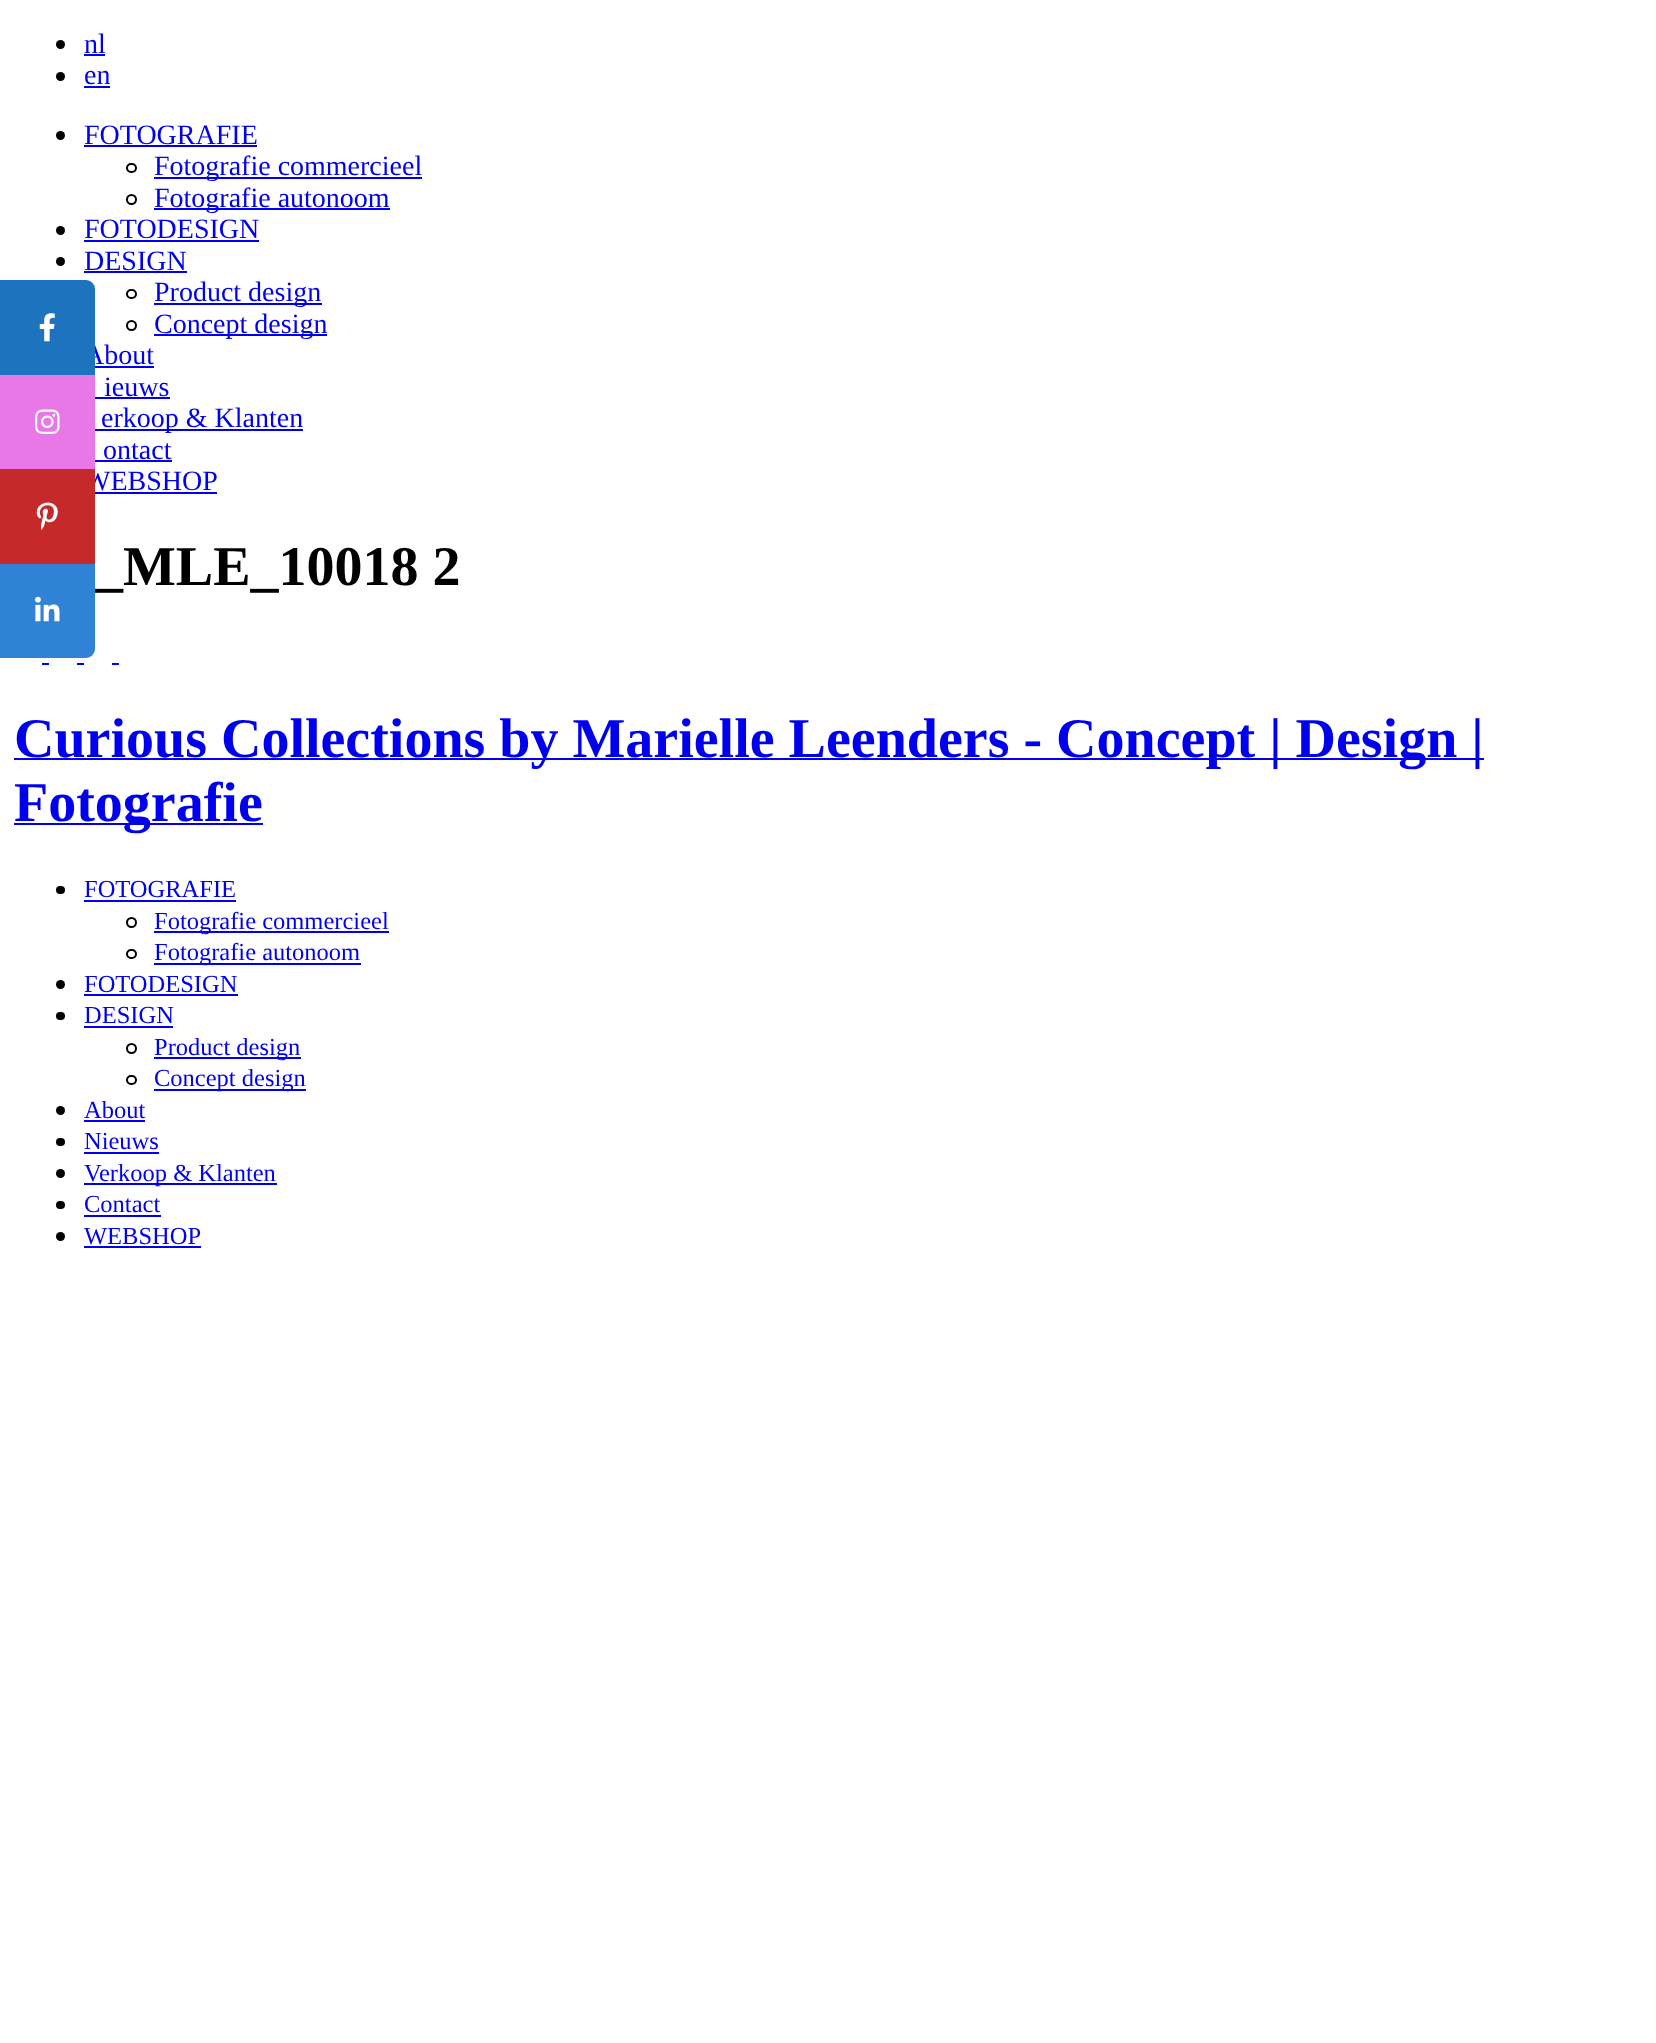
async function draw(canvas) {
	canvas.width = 1656;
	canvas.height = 2043;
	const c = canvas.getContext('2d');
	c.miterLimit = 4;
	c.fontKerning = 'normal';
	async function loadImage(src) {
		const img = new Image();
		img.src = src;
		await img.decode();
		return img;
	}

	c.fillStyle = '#fff';
	c.fillRect(0, 0, 1656, 2043);
	c.fillStyle = '#000';
	c.beginPath();
	c.arc(60.5, 44.5, 4.5, 0, 2 * Math.PI);
	c.fill();
	c.font = '28px Liberation Serif';
	c.fillStyle = '#00e';
	c.fillText('nl', 84, 53);
	c.fillRect(84, 54, 21, 2);
	c.fillStyle = '#000';
	c.beginPath();
	c.arc(60.5, 76.5, 4.5, 0, 2 * Math.PI);
	c.fill();
	c.fillStyle = '#00e';
	c.fillText('en', 84, 84);
	c.fillRect(84, 86, 26, 2);
	c.fillText('About', 84, 364);
	c.fillStyle = '#1e73be';
	c.beginPath();
	c.roundRect(0, 280, 95, 95, [0, 9, 0, 0]);
	c.fill();
	c.drawImage(await loadImage('img1.png'), 39, 313, 16, 29);
	c.fillStyle = '#e878e8';
	c.fillRect(0, 375, 95, 94);
	c.drawImage(await loadImage('img2.png'), 35, 409, 25, 25);
	c.fillStyle = '#00e';
	c.fillText('WEBSHOP', 84, 490);
	c.font = 'bold 56px Liberation Serif';
	c.fillStyle = '#000';
	c.fillText('_MLE_10018 2', 95, 585);
	c.fillStyle = '#c62929';
	c.fillRect(0, 469, 95, 95);
	c.drawImage(await loadImage('img3.png'), 36, 502, 22, 28);
	c.fillStyle = '#2f82d6';
	c.beginPath();
	c.roundRect(0, 564, 95, 94, [0, 0, 9, 0]);
	c.fill();
	c.drawImage(await loadImage('img4.png'), 35, 596, 25, 26);
	c.fillStyle = '#000';
	c.beginPath();
	c.arc(60.5, 135.5, 4.5, 0, 2 * Math.PI);
	c.fill();
	c.font = '28px Liberation Serif';
	c.fillStyle = '#00e';
	c.fillText('FOTOGRAFIE', 84, 144);
	c.fillRect(84, 145, 173, 2);
	c.beginPath();
	c.roundRect(127, 164, 9, 8, 4);
	c.strokeStyle = '#000';
	c.lineWidth = 2;
	c.stroke();
	c.fillRect(154, 177, 268, 2);
	c.fillText('Fotografie commercieel', 154, 175);
	c.beginPath();
	c.arc(131.5, 199.5, 4.5, 0, 2 * Math.PI);
	c.stroke();
	c.fillRect(154, 208, 236, 2);
	c.fillText('Fotografie autonoom', 154, 207);
	c.fillStyle = '#000';
	c.beginPath();
	c.arc(60.5, 230.5, 4.5, 0, 2 * Math.PI);
	c.fill();
	c.fillStyle = '#00e';
	c.fillText('FOTODESIGN', 84, 238);
	c.fillRect(84, 240, 175, 2);
	c.fillStyle = '#000';
	c.beginPath();
	c.arc(60.5, 261.5, 4.5, 0, 2 * Math.PI);
	c.fill();
	c.fillStyle = '#00e';
	c.fillText('DESIGN', 84, 270);
	c.fillRect(84, 271, 103, 2);
	c.beginPath();
	c.roundRect(127, 290, 9, 8, 4);
	c.stroke();
	c.fillRect(154, 303, 168, 2);
	c.fillText('Product design', 154, 301);
	c.beginPath();
	c.arc(131.5, 325.5, 4.5, 0, 2 * Math.PI);
	c.stroke();
	c.fillRect(154, 334, 173, 2);
	c.fillText('Concept design', 154, 333);
	c.fillRect(95, 366, 59, 2);
	c.fillText('ieuws', 104, 396);
	c.fillRect(95, 397, 75, 2);
	c.fillRect(95, 429, 208, 2);
	c.fillText('erkoop & Klanten', 101, 427);
	c.fillText('ontact', 103, 459);
	for (const [x, y, w, h, color] of [
		[95, 460, 77, 2, '#00e'],
		[95, 492, 122, 2, '#00e'],
		[42, 663, 7, 2, '#00e'],
		[77, 663, 7, 2, '#00e'],
		[112, 663, 7, 2, '#00e'],
		[14, 758, 1470, 2, '#00e'],
	]) {
		c.fillStyle = color;
		c.fillRect(x, y, w, h);
	}
	c.font = 'bold 56px Liberation Serif';
	c.fillText('Curious Collections by Marielle Leenders - Concept | Design |', 14, 757);
	c.fillRect(14, 823, 249, 2);
	c.fillText('Fotografie', 14, 821);
	c.fillStyle = '#000';
	c.beginPath();
	c.roundRect(56, 886, 9, 8, 4);
	c.fill();
	c.font = '24.5px Liberation Serif';
	c.fillStyle = '#00e';
	c.fillText('FOTOGRAFIE', 84, 897);
	c.fillRect(84, 900, 152, 2);
	c.beginPath();
	c.arc(131.5, 922.5, 4.5, 0, 2 * Math.PI);
	c.stroke();
	c.fillRect(154, 931, 235, 2);
	c.fillText('Fotografie commercieel', 154, 929);
	c.beginPath();
	c.roundRect(127, 950, 9, 8, 4);
	c.stroke();
	c.fillRect(154, 963, 207, 2);
	c.fillText('Fotografie autonoom', 154, 960);
	c.fillStyle = '#000';
	c.beginPath();
	c.arc(60.5, 984.5, 4.5, 0, 2 * Math.PI);
	c.fill();
	c.fillStyle = '#00e';
	c.fillText('FOTODESIGN', 84, 992);
	c.fillRect(84, 994, 154, 2);
	c.fillStyle = '#000';
	c.beginPath();
	c.roundRect(56, 1012, 9, 8, 4);
	c.fill();
	c.fillStyle = '#00e';
	c.fillText('DESIGN', 84, 1023);
	c.fillRect(84, 1026, 89, 2);
	c.beginPath();
	c.arc(131.5, 1048.5, 4.5, 0, 2 * Math.PI);
	c.stroke();
	c.fillRect(154, 1057, 147, 2);
	c.fillText('Product design', 154, 1055);
	c.beginPath();
	c.roundRect(127, 1076, 9, 8, 4);
	c.stroke();
	c.fillRect(154, 1089, 152, 2);
	c.fillText('Concept design', 154, 1086);
	c.fillStyle = '#000';
	c.beginPath();
	c.arc(60.5, 1110.5, 4.5, 0, 2 * Math.PI);
	c.fill();
	c.fillStyle = '#00e';
	c.fillText('About', 84, 1118);
	c.fillRect(84, 1120, 61, 2);
	c.fillStyle = '#000';
	c.beginPath();
	c.roundRect(56, 1138, 9, 8, 4);
	c.fill();
	c.fillStyle = '#00e';
	c.fillText('Nieuws', 84, 1149);
	c.fillRect(84, 1152, 75, 2);
	c.fillStyle = '#000';
	c.beginPath();
	c.arc(60.5, 1173.5, 4.5, 0, 2 * Math.PI);
	c.fill();
	c.fillStyle = '#00e';
	c.fillRect(84, 1183, 193, 2);
	c.fillText('Verkoop & Klanten', 84, 1181);
	c.fillStyle = '#000';
	c.beginPath();
	c.roundRect(56, 1201, 9, 8, 4);
	c.fill();
	c.fillStyle = '#00e';
	c.fillText('Contact', 84, 1212);
	c.fillRect(84, 1215, 77, 2);
	c.fillStyle = '#000';
	c.beginPath();
	c.arc(60.5, 1236.5, 4.5, 0, 2 * Math.PI);
	c.fill();
	c.fillStyle = '#00e';
	c.fillText('WEBSHOP', 84, 1244);
	c.fillRect(84, 1246, 117, 2);
}

draw(document.querySelector('canvas'));
